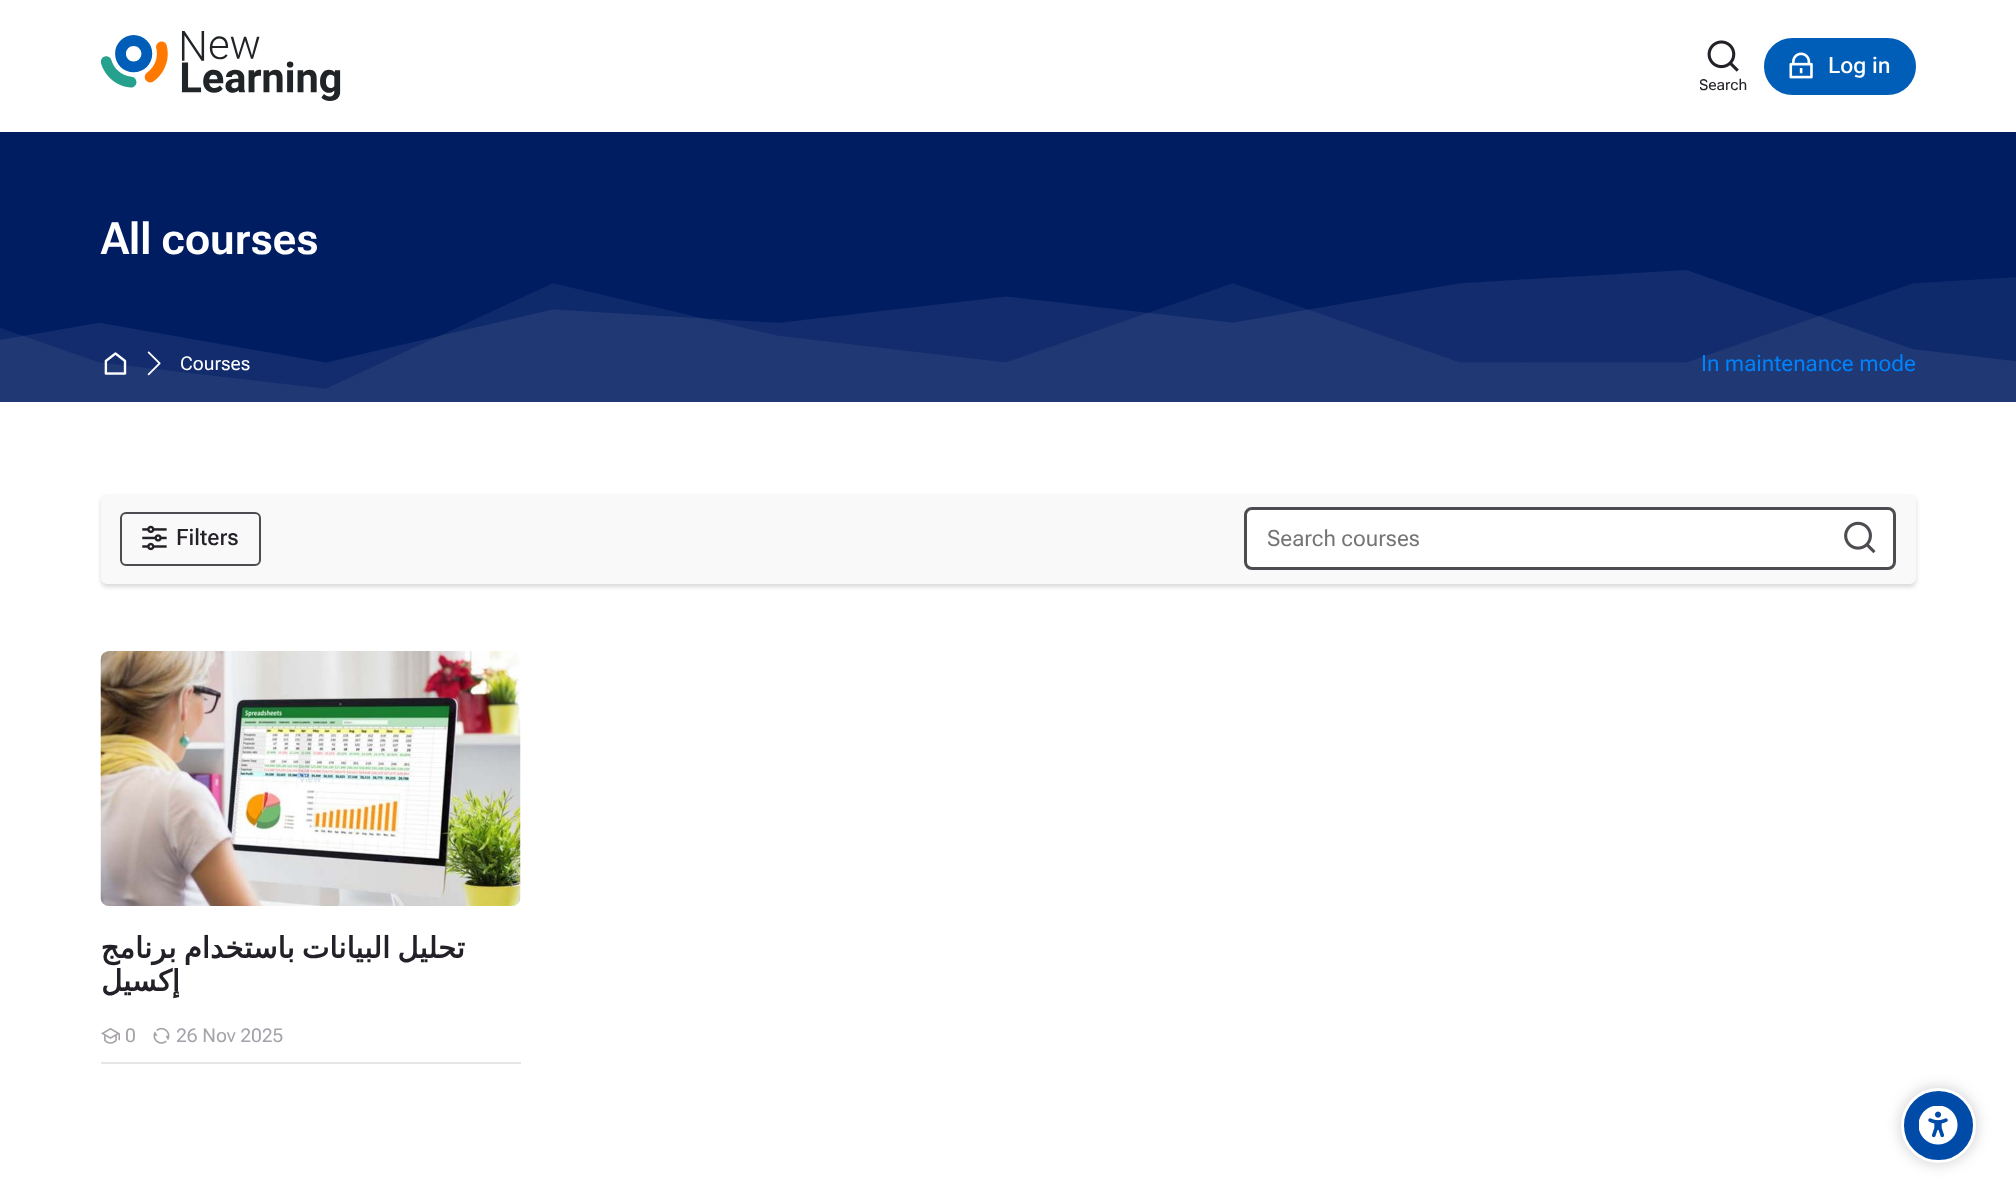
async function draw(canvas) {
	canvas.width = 2016;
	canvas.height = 1203;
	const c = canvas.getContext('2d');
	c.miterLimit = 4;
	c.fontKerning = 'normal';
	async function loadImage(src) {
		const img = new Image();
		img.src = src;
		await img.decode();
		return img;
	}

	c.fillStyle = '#fff';
	c.fillRect(0, 0, 2016, 1203);
	c.drawImage(await loadImage('img1.png'), 101, 31, 240, 70);
	c.fillStyle = '#005eb8';
	c.beginPath();
	c.roundRect(1765.5, 39.5, 149, 54, 27);
	c.fill();
	c.strokeStyle = '#005eb8';
	c.lineWidth = 3;
	c.stroke();
	c.drawImage(await loadImage('img2.png'), 1789, 52, 24, 27);
	c.font = '500 22.5px Roboto Flex';
	c.fillStyle = '#fff';
	c.fillText('Log in', 1828, 73);
	c.drawImage(await loadImage('img3.png'), 1707, 40, 32, 32);
	c.save();
	c.beginPath();
	c.rect(1700, 78, 48, 15);
	c.clip();
	c.font = '15px "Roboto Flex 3"';
	c.fillStyle = '#242027';
	c.fillText('Search', 1699, 90);
	c.restore();
	c.fillStyle = '#001d62';
	c.fillRect(0, 132, 2016, 270);
	c.font = '600 44.5px Roboto Flex';
	c.fillStyle = '#fff';
	c.fillText('All courses', 101, 254);
	c.drawImage(await loadImage('img4.png'), 0, 270, 2016, 132);
	c.drawImage(await loadImage('img5.png'), 104, 352, 23, 23);
	c.drawImage(await loadImage('img6.png'), 147, 351, 14, 25);
	c.font = '19px Roboto Flex';
	c.fillText('Courses', 180, 370);
	c.font = '22.5px "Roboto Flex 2"';
	c.fillStyle = '#0083fa';
	c.fillText('In maintenance mode', 1701, 371);
	c.fillStyle = '#00000026';
	c.filter = 'blur(2px)';
	c.beginPath();
	c.roundRect(101, 497, 1815, 90, 6);
	c.fill();
	c.filter = 'none';
	c.fillStyle = '#f9f9f9';
	c.beginPath();
	c.roundRect(101, 494, 1815, 90, 6);
	c.fill();
	c.beginPath();
	c.roundRect(121, 513, 139, 52, 5);
	c.strokeStyle = '#4f4c51';
	c.lineWidth = 2;
	c.stroke();
	c.drawImage(await loadImage('img7.png'), 142, 525, 25, 26);
	c.font = '500 22.5px Roboto Flex';
	c.fillStyle = '#242027';
	c.fillText('Filters', 176, 545);
	c.fillStyle = '#fff';
	c.beginPath();
	c.roundRect(1245.5, 508.5, 649, 60, 6.5);
	c.fill();
	c.lineWidth = 3;
	c.stroke();
	c.font = '22.5px "Roboto Flex 2"';
	c.fillStyle = '#757575';
	c.fillText('Search courses', 1267, 546);
	c.drawImage(await loadImage('img8.png'), 1844, 521, 32, 33);
	c.drawImage(await loadImage('img9.png'), 100, 651, 421, 255);
	c.font = '500 10px Roboto Flex';
	c.fillStyle = '#d3e1e8';
	c.fillText('View', 299, 782);
	c.wordSpacing = '-2px';
	c.direction = 'rtl';
	c.font = 'bold 29.25px DejaVu Sans';
	c.fillStyle = '#242027';
	c.fillText('تحليل البيانات باستخدام برنامج', 465, 958);
	c.wordSpacing = '0px';
	c.fillText('إكسيل', 180, 991);
	c.fillStyle = '#e6e6e6';
	c.fillRect(101, 1062, 420, 2);
	c.drawImage(await loadImage('img10.png'), 101, 1027, 19, 17);
	c.direction = 'ltr';
	c.font = '19px Roboto Flex';
	c.fillStyle = '#a6a2a9';
	c.fillText('0', 125, 1042);
	c.drawImage(await loadImage('img11.png'), 153, 1027, 17, 17);
	c.fillText('26 Nov 2025', 176, 1042);
	c.fillStyle = '#00000033';
	c.filter = 'blur(7.5px)';
	c.beginPath();
	c.roundRect(1901, 1088, 75, 75, 37.5);
	c.fill();
	c.filter = 'none';
	c.fillStyle = '#004ba8';
	c.beginPath();
	c.arc(1938.5, 1125.5, 36, 0, 2 * Math.PI);
	c.fill();
	c.strokeStyle = '#fff';
	c.stroke();
	c.drawImage(await loadImage('img12.png'), 1919, 1106, 39, 39);
}

draw(document.querySelector('canvas'));
